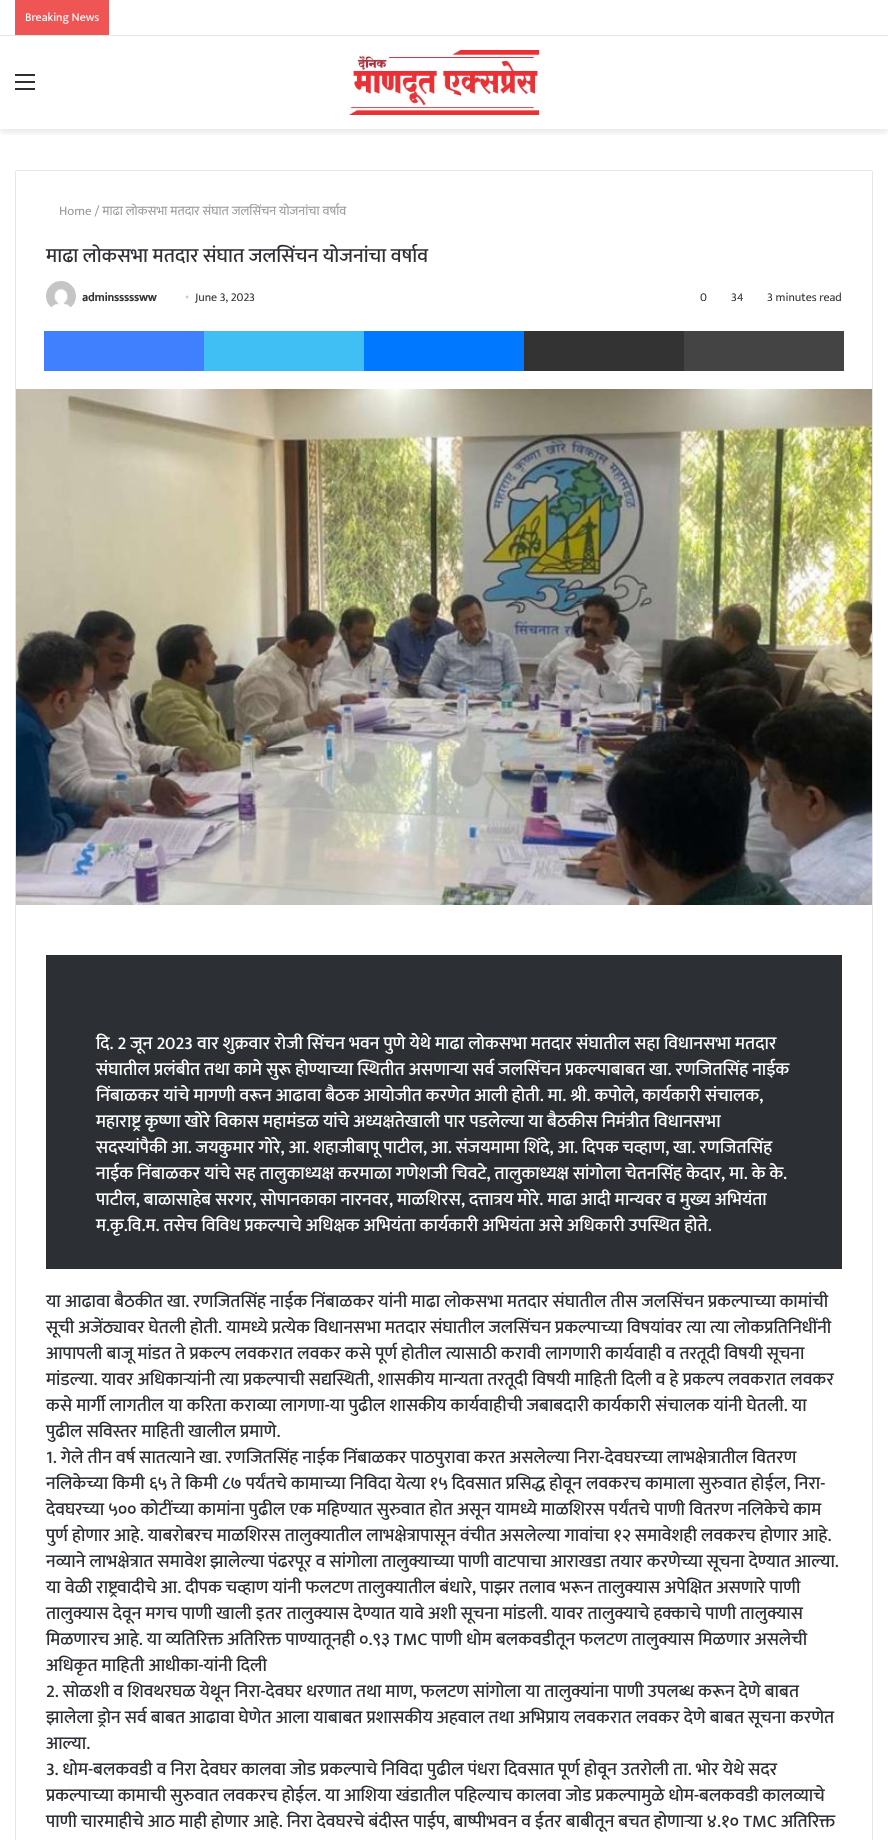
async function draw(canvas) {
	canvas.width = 888;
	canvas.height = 1840;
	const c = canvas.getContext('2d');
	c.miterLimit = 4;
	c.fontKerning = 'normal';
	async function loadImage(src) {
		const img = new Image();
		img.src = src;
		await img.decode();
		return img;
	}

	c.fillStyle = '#fff';
	c.fillRect(0, 0, 888, 1840);
	c.save();
	c.beginPath();
	c.rect(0, 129, 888, 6);
	c.clip();
	c.fillStyle = '#0000001a';
	c.filter = 'blur(3.5px)';
	c.beginPath();
	c.rect(0, 39, 888, 93);
	c.fill();
	c.filter = 'none';
	c.restore();
	c.fillStyle = '#e6e6e6';
	c.fillRect(0, 35, 888, 1);
	c.fillStyle = '#f05555';
	c.fillRect(15, 0, 94, 35);
	c.font = '12px Mukta';
	c.fillStyle = '#fff';
	c.fillText('Breaking News', 25, 21);
	for (const [x, y, w, h, color] of [
		[15, 81, 20, 2, '#2c2f34'],
		[15, 74, 20, 2, '#2c2f34'],
		[15, 88, 20, 2, '#2c2f34'],
	]) {
		c.fillStyle = color;
		c.fillRect(x, y, w, h);
	}
	c.drawImage(await loadImage('img1.png'), 349, 50, 190, 65);
	c.beginPath();
	c.roundRect(15.5, 170.5, 857, 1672, 1.5);
	c.strokeStyle = '#e6e6e6';
	c.stroke();
	c.font = '13px Mukta';
	c.fillStyle = '#999';
	c.fillText('Home / माढा लोकसभा मतदार संघात जलसिंचन योजनांचा वर्षाव', 59, 215);
	c.font = '500 20px Mukta';
	c.fillStyle = '#2c2f34';
	c.fillText('माढा लोकसभा मतदार संघात जलसिंचन योजनांचा वर्षाव', 46, 262);
	c.drawImage(await loadImage('img2.png'), 46, 281, 30, 27);
	c.font = 'bold 12px Mukta';
	c.fillStyle = '#333';
	c.fillText('adminsssssww', 82, 301);
	c.font = '12px Liberation Serif';
	c.fillStyle = '#ccc';
	c.fillText('•', 185, 301);
	c.font = '12px Mukta';
	c.fillStyle = '#333';
	for (const [text, x, y] of [
		['June 3, 2023', 195, 301],
		['0', 700, 301],
		['34', 731, 301],
		['3 minutes read', 767, 301],
	]) {
		c.fillText(text, x, y);
	}
	for (const [x, y, w, h, color] of [
		[44, 331, 160, 40, '#4080ff'],
		[204, 331, 160, 40, '#40bff5'],
		[364, 331, 160, 40, '#0078ff'],
		[524, 331, 160, 40, '#333'],
		[684, 331, 160, 40, '#444'],
	]) {
		c.fillStyle = color;
		c.fillRect(x, y, w, h);
	}
	c.drawImage(await loadImage('img3.png'), 16, 389, 856, 516);
	c.fillStyle = '#2c2f34';
	c.fillRect(46, 955, 796, 314);
	c.font = '500 18px Mukta';
	c.fillStyle = '#fff';
	for (const [text, x, y] of [
		['दि. 2 जून 2023 वार शुक्रवार रोजी सिंचन भवन पुणे येथे माढा लोकसभा मतदार संघातील सहा विधानसभा मतदार', 96, 1049],
		['संघातील प्रलंबीत तथा कामे सुरू होण्याच्या स्थितीत असणाऱ्या सर्व जलसिंचन प्रकल्पाबाबत खा. रणजितसिंह नाईक', 96, 1075],
		['निंबाळकर यांचे मागणी वरून आढावा बैठक आयोजीत करणेत आली होती. मा. श्री. कपोले, कार्यकारी संचालक,', 96, 1101],
		['महाराष्ट्र कृष्णा खोरे विकास महामंडळ यांचे अध्यक्षतेखाली पार पडलेल्या या बैठकीस निमंत्रीत विधानसभा', 96, 1127],
		['सदस्यांपैकी आ. जयकुमार गोरे, आ. शहाजीबापू पाटील, आ. संजयमामा शिंदे, आ. दिपक चव्हाण, खा. रणजितसिंह', 96, 1153],
		['नाईक निंबाळकर यांचे सह तालुकाध्यक्ष करमाळा गणेशजी चिवटे, तालुकाध्यक्ष सांगोला चेतनसिंह केदार, मा. के के.', 96, 1179],
		['पाटील, बाळासाहेब सरगर, सोपानकाका नारनवर, माळशिरस, दत्तात्रय मोरे. माढा आदी मान्यवर व मुख्य अभियंता', 96, 1205],
		['म.कृ.वि.म. तसेच विविध प्रकल्पाचे अधिक्षक अभियंता कार्यकारी अभियंता असे अधिकारी उपस्थित होते.', 96, 1231],
	]) {
		c.fillText(text, x, y);
	}
	c.fillStyle = '#2c2f34';
	for (const [text, x, y] of [
		['या आढावा बैठकीत खा. रणजितसिंह नाईक निंबाळकर यांनी माढा लोकसभा मतदार संघातील तीस जलसिंचन प्रकल्पाच्या कामांची', 46, 1307],
		['सूची अजेंठ्यावर घेतली होती. यामध्ये प्रत्येक विधानसभा मतदार संघातील जलसिंचन प्रकल्पाच्या विषयांवर त्या त्या लोकप्रतिनिधींनी', 46, 1333],
		['आपापली बाजू मांडत ते प्रकल्प लवकरात लवकर कसे पूर्ण होतील त्यासाठी करावी लागणारी कार्यवाही व तरतूदी विषयी सूचना', 46, 1359],
		['मांडल्या. यावर अधिकाऱ्यांनी त्या प्रकल्पाची सद्यस्थिती, शासकीय मान्यता तरतूदी विषयी माहिती दिली व हे प्रकल्प लवकरात लवकर', 46, 1385],
		['कसे मार्गी लागतील या करिता कराव्या लागणा-या पुढील शासकीय कार्यवाहीची जबाबदारी कार्यकारी संचालक यांनी घेतली. या', 46, 1411],
		['पुढील सविस्तर माहिती खालील प्रमाणे.', 46, 1437],
		['1. गेले तीन वर्ष सातत्याने खा. रणजितसिंह नाईक निंबाळकर पाठपुरावा करत असलेल्या निरा-देवघरच्या लाभक्षेत्रातील वितरण', 46, 1463],
		['नलिकेच्या किमी ६५ ते किमी ८७ पर्यंतचे कामाच्या निविदा येत्या १५ दिवसात प्रसिद्ध होवून लवकरच कामाला सुरुवात होईल, निरा-', 46, 1489],
		['देवघरच्या ५०० कोटींच्या कामांना पुढील एक महिण्यात सुरुवात होत असून यामध्ये माळशिरस पर्यंतचे पाणी वितरण नलिकेचे काम', 46, 1515],
		['पुर्ण होणार आहे. याबरोबरच माळशिरस तालुक्यातील लाभक्षेत्रापासून वंचीत असलेल्या गावांचा १२ समावेशही लवकरच होणार आहे.', 46, 1541],
		['नव्याने लाभक्षेत्रात समावेश झालेल्या पंढरपूर व सांगोला तालुक्याच्या पाणी वाटपाचा आराखडा तयार करणेच्या सूचना देण्यात आल्या.', 46, 1567],
		['या वेळी राष्ट्रवादीचे आ. दीपक चव्हाण यांनी फलटण तालुक्यातील बंधारे, पाझर तलाव भरून तालुक्यास अपेक्षित असणारे पाणी', 46, 1593],
		['तालुक्यास देवून मगच पाणी खाली इतर तालुक्यास देण्यात यावे अशी सूचना मांडली. यावर तालुक्याचे हक्काचे पाणी तालुक्यास', 46, 1619],
		['मिळणारच आहे. या व्यतिरिक्त अतिरिक्त पाण्यातूनही ०.९३ TMC पाणी धोम बलकवडीतून फलटण तालुक्यास मिळणार असलेची', 46, 1645],
		['अधिकृत माहिती आधीका-यांनी दिली', 46, 1671],
		['2. सोळशी व शिवथरघळ येथून निरा-देवघर धरणात तथा माण, फलटण सांगोला या तालुक्यांना पाणी उपलब्ध करून देणे बाबत', 46, 1697],
		['झालेला ड्रोन सर्व बाबत आढावा घेणेत आला याबाबत प्रशासकीय अहवाल तथा अभिप्राय लवकरात लवकर देणे बाबत सूचना करणेत', 46, 1723],
		['आल्या.', 46, 1749],
		['3. धोम-बलकवडी व निरा देवघर कालवा जोड प्रकल्पाचे निविदा पुढील पंधरा दिवसात पूर्ण होवून उतरोली ता. भोर येथे सदर', 46, 1775],
		['प्रकल्पाच्या कामाची सुरुवात लवकरच होईल. या आशिया खंडातील पहिल्याच कालवा जोड प्रकल्पामुळे धोम-बलकवडी कालव्याचे', 46, 1801],
		['पाणी चारमाहीचे आठ माही होणार आहे. निरा देवघरचे बंदीस्त पाईप, बाष्पीभवन व ईतर बाबीतून बचत होणाऱ्या ४.१० TMC अतिरिक्त', 46, 1827],
	]) {
		c.fillText(text, x, y);
	}
}

draw(document.querySelector('canvas'));
